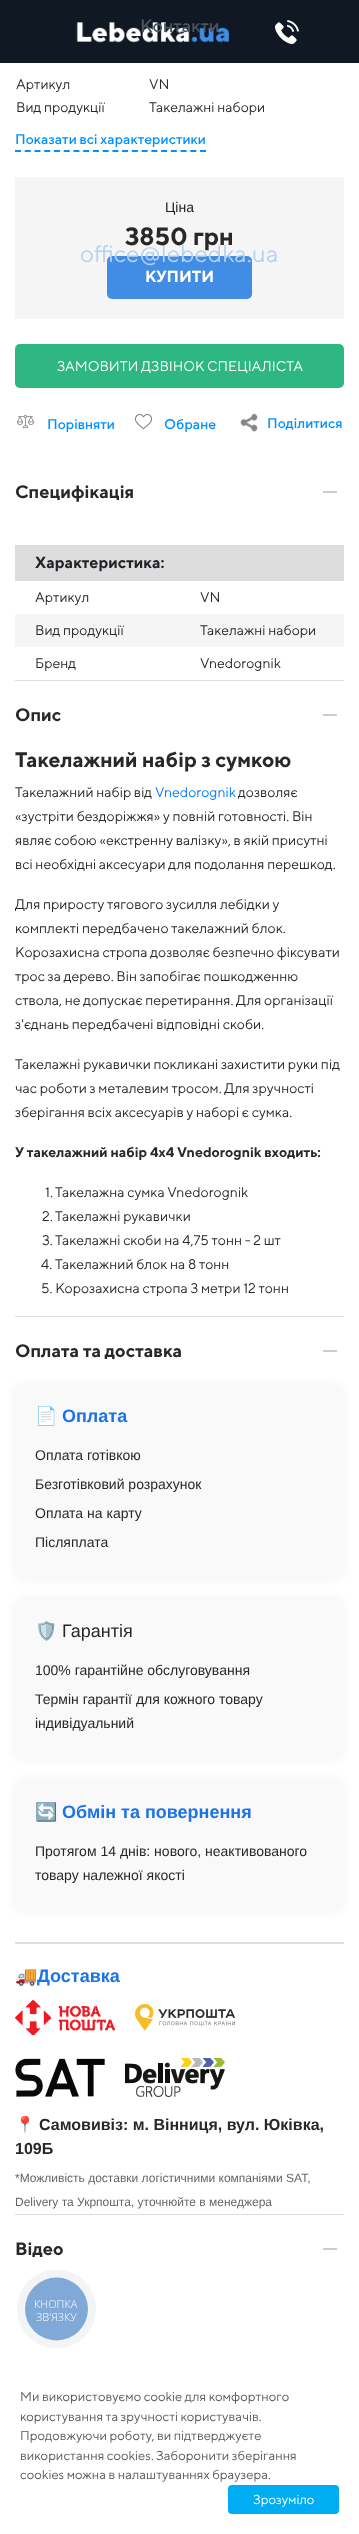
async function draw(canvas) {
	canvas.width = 359;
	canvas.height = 2534;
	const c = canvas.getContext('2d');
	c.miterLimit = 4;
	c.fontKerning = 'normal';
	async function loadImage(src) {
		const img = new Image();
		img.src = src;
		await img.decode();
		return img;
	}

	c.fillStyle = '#fff';
	c.fillRect(0, 0, 359, 2534);
	c.fillStyle = '#101923';
	c.fillRect(0, 0, 359, 63);
	c.drawImage(await loadImage('img2.png'), 76, 22, 153, 21);
	c.font = '500 18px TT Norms';
	c.fillStyle = '#4a5460';
	c.fillText('Контакти', 140, 32);
	c.fillStyle = '#f5f5f5';
	c.fillRect(15, 177, 329, 142);
	c.fillStyle = '#418de6';
	c.beginPath();
	c.roundRect(107, 256, 145, 43, 5);
	c.fill();
	c.font = '24px TT Norms';
	c.fillStyle = '#b6d1f0';
	c.fillText('office@lebedka.ua', 80, 262);
	c.drawImage(await loadImage('img1.png'), 275, 20, 24, 24);
	c.font = '13px TT Norms';
	c.fillStyle = '#5a5a5a';
	for (const [text, x, y] of [
		['Ми використовуємо cookie для комфортного', 20, 2401],
		['користування та зручності користувачів.', 20, 2421],
		['Продовжуючи роботу, ви підтверджуєте', 20, 2440],
		['використання cookies. Заборонити зберігання', 20, 2460],
		['cookies можна в налаштуваннях браузера.', 20, 2479],
	]) {
		c.fillText(text, x, y);
	}
	c.fillStyle = '#00adf2';
	c.beginPath();
	c.roundRect(228, 2485, 111, 29, 4);
	c.fill();
	c.fillStyle = '#fff';
	c.fillText('Зрозуміло', 253, 2504);
	c.font = '14px TT Norms';
	c.fillStyle = '#282828';
	for (const [text, x, y] of [
		['Артикул', 16, 89],
		['VN', 149, 89],
		['Вид продукції', 16, 112],
		['Такелажні набори', 149, 112],
	]) {
		c.fillText(text, x, y);
	}
	c.beginPath();
	c.moveTo(15, 151);
	c.lineTo(206, 151);
	c.strokeStyle = '#0090ff';
	c.lineWidth = 2;
	c.setLineDash([6, 3.74]);
	c.stroke();
	c.font = '500 14px TT Norms';
	c.fillStyle = '#0090ff';
	c.fillText('Показати всі характеристики', 15, 144);
	c.font = '14px Liberation Sans';
	c.fillStyle = '#212529';
	c.fillText('Ціна', 165, 212);
	c.font = 'bold 25px TT Norms';
	c.fillStyle = '#282828';
	c.fillText('3850 грн', 125, 245);
	c.font = 'bold 16px TT Norms';
	c.fillStyle = '#fff';
	c.fillText('КУПИТИ', 145, 282);
	c.fillStyle = '#2fb782';
	c.beginPath();
	c.roundRect(15, 344, 329, 44, 5);
	c.fill();
	c.font = '14px TT Norms';
	c.fillStyle = '#fff';
	c.fillText('ЗАМОВИТИ ДЗВІНОК СПЕЦІАЛІСТА', 57, 371);
	c.drawImage(await loadImage('img3.png'), 17, 415, 17, 14);
	c.font = '500 14px TT Norms';
	c.fillStyle = '#0090ff';
	c.fillText('Порівняти', 47, 429);
	c.drawImage(await loadImage('img4.png'), 135, 414, 17, 16);
	c.fillText('Обране', 164, 429);
	c.drawImage(await loadImage('img5.png'), 240, 413, 18, 19);
	c.fillText('Поділитися', 267, 428);
	c.fillStyle = '#ddd';
	c.fillRect(15, 680, 329, 1);
	c.font = 'bold 18px TT Norms';
	c.fillStyle = '#282828';
	c.fillText('Специфікація', 15, 498);
	c.fillStyle = '#ccc';
	c.fillRect(323, 491, 14, 2);
	c.fillStyle = '#ddd';
	c.fillRect(15, 545, 329, 36);
	c.font = 'bold 16px TT Norms';
	c.fillStyle = '#212529';
	c.fillText('Характеристика:', 35, 568);
	c.font = '14px TT Norms';
	c.fillStyle = '#282828';
	c.fillText('Артикул', 35, 602);
	c.fillText('VN', 200, 602);
	c.fillStyle = '#f5f5f5';
	c.fillRect(15, 614, 329, 33);
	c.fillStyle = '#282828';
	for (const [text, x, y] of [
		['Вид продукції', 35, 635],
		['Такелажні набори', 200, 635],
		['Бренд', 35, 668],
		['Vnedorognik', 200, 668],
	]) {
		c.fillText(text, x, y);
	}
	c.fillStyle = '#ddd';
	c.fillRect(15, 1316, 329, 1);
	c.font = 'bold 18px TT Norms';
	c.fillStyle = '#282828';
	c.fillText('Опис', 15, 721);
	c.fillStyle = '#ccc';
	c.fillRect(323, 714, 14, 2);
	c.font = 'bold 21px TT Norms';
	c.fillStyle = '#282828';
	c.fillText('Такелажний набір з сумкою', 15, 767);
	c.font = '14px TT Norms';
	c.fillText('Такелажний набір від', 15, 797);
	c.fillStyle = '#007bff';
	c.fillText('Vnedorognik', 155, 797);
	c.fillStyle = '#282828';
	for (const [text, x, y] of [
		['дозволяє', 238, 797],
		['«зустріти бездоріжжя» у повній готовності. Він', 15, 821],
		['являє собою «екстренну валізку», в якій присутні', 15, 845],
		['всі необхідні аксесуари для подолання перешкод.', 15, 869],
		['Для приросту тягового зусилля лебідки у', 15, 909],
		['комплекті передбачено такелажний блок.', 15, 933],
		['Корозахисна стропа дозволяє безпечно фіксувати', 15, 957],
		['трос за дерево. Він запобігає пошкодженню', 15, 981],
		['ствола, не допускає перетирання. Для організації', 15, 1005],
		['з\'єднань передбачені відповідні скоби.', 15, 1029],
		['Такелажні рукавички покликані захистити руки під', 15, 1069],
		['час роботи з металевим тросом. Для зручності', 15, 1093],
		['зберігання всіх аксесуарів у наборі є сумка.', 15, 1117],
	]) {
		c.fillText(text, x, y);
	}
	c.font = 'bold 14px TT Norms';
	c.fillText('У такелажний набір 4х4 Vnedorognik входить:', 15, 1157);
	c.font = '14px TT Norms';
	for (const [text, x, y] of [
		['1.', 45, 1197],
		['Такелажна сумка Vnedorognik', 55, 1197],
		['2.', 42, 1221],
		['Такелажні рукавички', 55, 1221],
		['3.', 42, 1245],
		['Такелажні скоби на 4,75 тонн - 2 шт', 55, 1245],
		['4.', 41, 1269],
		['Такелажний блок на 8 тонн', 55, 1269],
		['5. Корозахисна стропа 3 метри 12 тонн', 41, 1293],
	]) {
		c.fillText(text, x, y);
	}
	c.fillStyle = '#ddd';
	c.fillRect(15, 2214, 329, 1);
	c.font = 'bold 18px TT Norms';
	c.fillStyle = '#282828';
	c.fillText('Оплата та доставка', 15, 1357);
	c.fillStyle = '#ccc';
	c.fillRect(323, 1350, 14, 2);
	c.fillStyle = '#0000000d';
	c.filter = 'blur(5px)';
	c.beginPath();
	c.roundRect(15, 1384, 329, 195, 10);
	c.fill();
	c.filter = 'none';
	c.fillStyle = '#f9f9f9';
	c.beginPath();
	c.roundRect(15, 1384, 329, 195, 10);
	c.fill();
	c.font = 'bold 18px Noto Color Emoji';
	c.fillStyle = '#1a73e8';
	c.fillText('📄', 35, 1422);
	c.font = 'bold 18px Liberation Sans';
	c.fillText('Оплата', 62, 1422);
	c.font = '14px Liberation Sans';
	c.fillStyle = '#282828';
	for (const [text, x, y] of [
		['Оплата готівкою', 35, 1460],
		['Безготівковий розрахунок', 35, 1489],
		['Оплата на карту', 35, 1518],
		['Післяплата', 35, 1547],
	]) {
		c.fillText(text, x, y);
	}
	c.fillStyle = '#0000000d';
	c.filter = 'blur(5px)';
	c.beginPath();
	c.roundRect(15, 1599, 329, 161, 10);
	c.fill();
	c.filter = 'none';
	c.fillStyle = '#f9f9f9';
	c.beginPath();
	c.roundRect(15, 1599, 329, 161, 10);
	c.fill();
	c.font = '18px Noto Color Emoji';
	c.fillStyle = '#282828';
	c.fillText('🛡️', 35, 1637);
	c.font = '18px Liberation Sans';
	c.fillText('Гарантія', 62, 1637);
	c.font = '14px Liberation Sans';
	for (const [text, x, y] of [
		['100% гарантійне обслуговування', 35, 1675],
		['Термін гарантії для кожного товару', 35, 1704],
		['індивідуальний', 35, 1728],
	]) {
		c.fillText(text, x, y);
	}
	c.fillStyle = '#0000000d';
	c.filter = 'blur(5px)';
	c.beginPath();
	c.roundRect(15, 1780, 329, 132, 10);
	c.fill();
	c.filter = 'none';
	c.fillStyle = '#f9f9f9';
	c.beginPath();
	c.roundRect(15, 1780, 329, 132, 10);
	c.fill();
	c.font = 'bold 18px Noto Color Emoji';
	c.fillStyle = '#1a73e8';
	c.fillText('🔄', 35, 1818);
	c.font = 'bold 18px Liberation Sans';
	c.fillText('Обмін та повернення', 62, 1818);
	c.font = '14px Liberation Sans';
	c.fillStyle = '#282828';
	c.fillText('Протягом 14 днів: нового, неактивованого', 35, 1856);
	c.fillText('товару належної якості', 35, 1880);
	c.fillStyle = '#e0e0e0';
	c.fillRect(15, 1942, 329, 2);
	c.font = 'bold 18px Noto Color Emoji';
	c.fillStyle = '#282828';
	c.fillText('🚚', 15, 1982);
	c.font = 'bold 18px Liberation Sans';
	c.fillStyle = '#1a73e8';
	c.fillText('Доставка', 37, 1982);
	c.drawImage(await loadImage('img6.png'), 15, 2000, 100, 35);
	c.drawImage(await loadImage('img7.png'), 135, 2004, 100, 27);
	c.drawImage(await loadImage('img8.png'), 15, 2058, 90, 39);
	c.drawImage(await loadImage('img9.png'), 125, 2058, 100, 39);
	c.font = 'bold 16px Noto Color Emoji';
	c.fillStyle = '#282828';
	c.fillText('📍', 15, 2130);
	c.font = 'bold 16px Liberation Sans';
	c.fillText('Самовивіз: м. Вінниця, вул. Юківка,', 39, 2130);
	c.fillText('109Б', 15, 2154);
	c.font = '12px Liberation Sans';
	c.fillStyle = '#666';
	c.fillText('*Можливість доставки логістичними компаніями SAT,', 15, 2182);
	c.fillText('Delivery та Укрпошта, уточнюйте в менеджера', 15, 2206);
	c.font = 'bold 18px TT Norms';
	c.fillStyle = '#282828';
	c.fillText('Відео', 15, 2255);
	c.fillStyle = '#ccc';
	c.fillRect(323, 2248, 14, 2);
	c.fillStyle = '#f2f4f5';
	c.beginPath();
	c.arc(56.5, 2309, 39.5, 0, 2 * Math.PI);
	c.fill();
	c.fillStyle = '#80a9d8';
	c.beginPath();
	c.arc(56.5, 2309, 31.5, 0, 2 * Math.PI);
	c.fill();
	c.font = '300 11px Open Sans';
	c.fillStyle = '#fff';
	c.fillText('КНОПКА', 34, 2308);
	c.fillText('ЗВ\'ЯЗКУ', 36, 2321);
}

draw(document.querySelector('canvas'));
